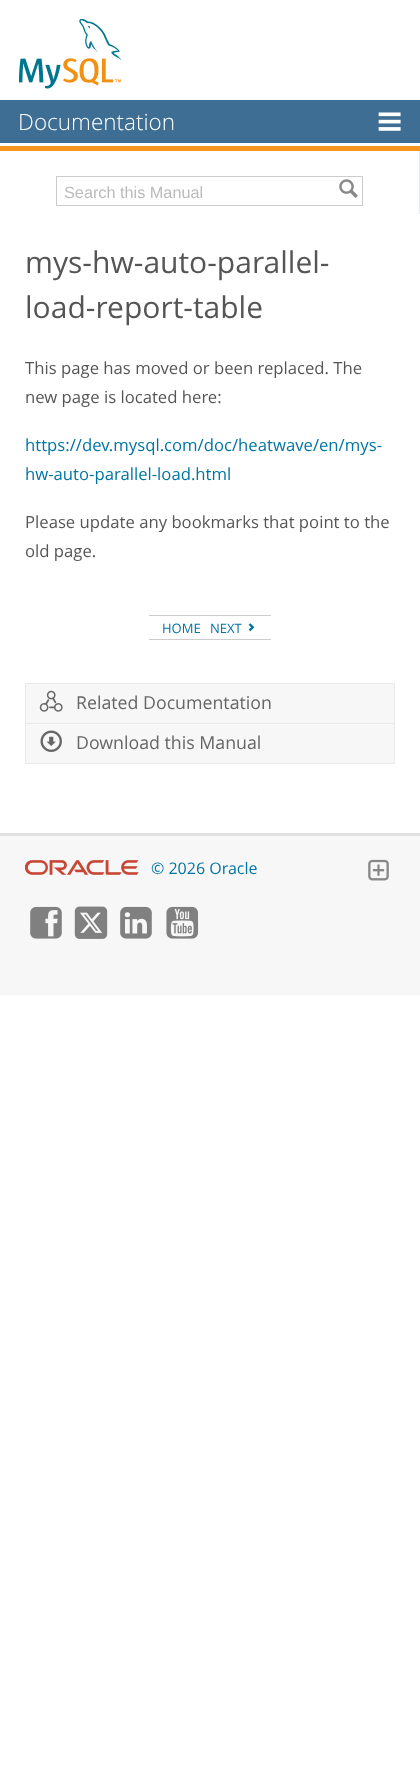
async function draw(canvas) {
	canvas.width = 420;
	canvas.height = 1774;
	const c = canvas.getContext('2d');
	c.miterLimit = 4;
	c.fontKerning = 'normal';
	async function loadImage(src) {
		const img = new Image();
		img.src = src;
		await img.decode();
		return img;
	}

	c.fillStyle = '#fff';
	c.fillRect(0, 0, 420, 1774);
	c.drawImage(await loadImage('img1.png'), 19, 19, 102, 70);
	c.fillStyle = '#3e6e93';
	c.fillRect(0, 100, 420, 43);
	c.font = '300 22.5px Open Sans';
	c.fillStyle = '#fff';
	c.fillText('Documentation', 18, 130);
	c.drawImage(await loadImage('img2.png'), 378, 112, 23, 19);
	c.fillStyle = '#f59620';
	c.fillRect(0, 146, 420, 5);
	c.fillStyle = '#e9eaeb';
	c.fillRect(419, 151, 1, 63);
	c.strokeStyle = '#ccc';
	c.strokeRect(56.5, 176.5, 306, 29);
	c.font = '16.25px Liberation Sans';
	c.fillStyle = '#bbb';
	c.fillText('Search this Manual', 64, 198);
	c.drawImage(await loadImage('img3.png'), 339, 179, 19, 19);
	c.font = '30px Open Sans';
	c.fillStyle = '#555';
	c.fillText('mys-hw-auto-parallel-', 25, 273);
	c.fillText('load-report-table', 25, 318);
	c.font = '16.7px Open Sans';
	c.fillText('This page has moved or been replaced. The', 25, 374);
	c.fillText('new page is located here:', 25, 403);
	c.fillStyle = '#0074a3';
	c.fillText('https://dev.mysql.com/doc/heatwave/en/mys-', 25, 451);
	c.fillText('hw-auto-parallel-load.html', 25, 480);
	c.fillStyle = '#555';
	c.fillText('Please update any bookmarks that point to the', 25, 528);
	c.fillText('old page.', 25, 557);
	c.fillStyle = '#ccc';
	c.fillRect(149, 615, 122, 1);
	c.fillRect(149, 639, 122, 1);
	c.font = '13px Open Sans';
	c.fillStyle = '#0074a3';
	c.fillText('HOME', 162, 633);
	c.fillText('NEXT', 210, 633);
	c.drawImage(await loadImage('img4.png'), 248, 623, 7, 9);
	c.fillStyle = '#f7f7f7';
	c.beginPath();
	c.rect(25.5, 683.5, 369, 40);
	c.fill();
	c.strokeStyle = '#e9eaeb';
	c.stroke();
	c.drawImage(await loadImage('img5.png'), 39, 690, 24, 22);
	c.font = '17.75px Open Sans';
	c.fillStyle = '#666';
	c.fillText('Related Documentation', 76, 709);
	c.fillStyle = '#f7f7f7';
	c.beginPath();
	c.rect(25.5, 723.5, 369, 40);
	c.fill();
	c.stroke();
	c.drawImage(await loadImage('img6.png'), 40, 730, 22, 22);
	c.fillStyle = '#666';
	c.fillText('Download this Manual', 76, 749);
	c.fillStyle = '#f7f7f7';
	c.fillRect(0, 836, 420, 159);
	c.fillStyle = '#e1e1e1';
	c.fillRect(0, 833, 420, 3);
	c.drawImage(await loadImage('img7.png'), 25, 860, 114, 15);
	c.font = '16px Open Sans';
	c.fillStyle = '#0074a3';
	c.fillText('© 2026 Oracle', 151, 874);
	c.drawImage(await loadImage('img8.png'), 368, 859, 21, 22);
	c.drawImage(await loadImage('img9.png'), 30, 906, 32, 33);
	c.drawImage(await loadImage('img10.png'), 74, 906, 34, 33);
	c.drawImage(await loadImage('img11.png'), 120, 906, 32, 33);
	c.drawImage(await loadImage('img12.png'), 166, 906, 33, 33);
}

draw(document.querySelector('canvas'));
